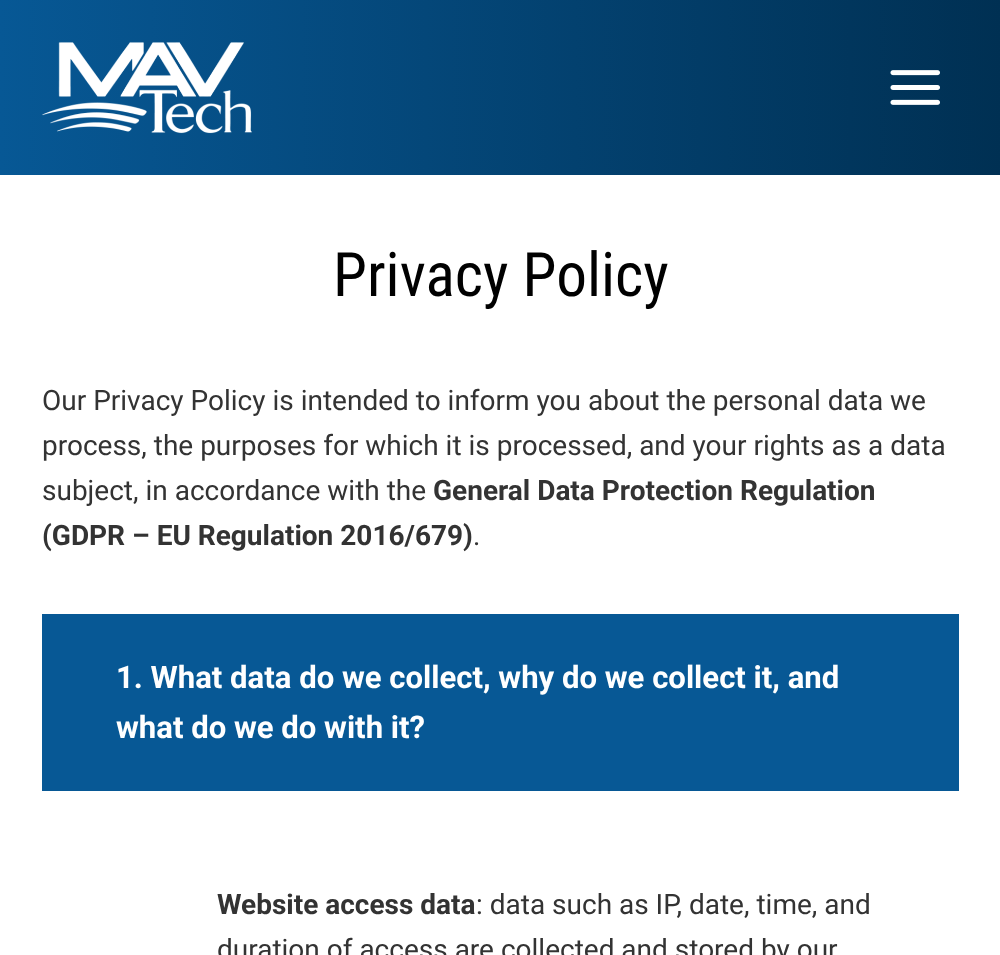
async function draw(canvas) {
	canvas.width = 1000;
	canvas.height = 955;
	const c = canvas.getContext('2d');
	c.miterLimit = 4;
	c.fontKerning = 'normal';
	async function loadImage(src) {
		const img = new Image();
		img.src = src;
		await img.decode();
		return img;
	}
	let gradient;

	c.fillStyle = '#fff';
	c.fillRect(0, 0, 1000, 955);
	gradient = c.createLinearGradient(0, 88, 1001, 87);
	gradient.addColorStop(0, '#075895');
	gradient.addColorStop(1, '#003053');
	c.fillStyle = gradient;
	c.fillRect(0, 0, 1000, 175);
	c.drawImage(await loadImage('img1.png'), 42, 42, 210, 92);
	c.drawImage(await loadImage('img2.png'), 890, 70, 50, 35);
	c.font = '61.25px Roboto Condensed';
	c.fillStyle = '#000';
	c.fillText('Privacy Policy', 333, 296);
	c.font = '28px Roboto';
	c.fillStyle = '#333';
	for (const [text, x, y] of [
		['Our Privacy Policy is intended to inform you about the personal data we', 42, 410],
		['process, the purposes for which it is processed, and your rights as a data', 42, 455],
		['subject, in accordance with the', 42, 500],
	]) {
		c.fillText(text, x, y);
	}
	c.font = 'bold 28px Roboto';
	c.fillText('General Data Protection Regulation', 433, 500);
	c.fillText('(GDPR – EU Regulation 2016/679)', 42, 545);
	c.font = '28px Roboto';
	c.fillText('.', 473, 545);
	c.fillStyle = '#075895';
	c.fillRect(42, 614, 917, 177);
	c.font = 'bold 31.1px Roboto';
	c.fillStyle = '#fff';
	c.fillText('1. What data do we collect, why do we collect it, and', 116, 688);
	c.fillText('what do we do with it?', 116, 738);
	c.font = 'bold 28px Roboto';
	c.fillStyle = '#333';
	c.fillText('Website access data', 217, 914);
	c.font = '28px Roboto';
	c.fillText(': data such as IP, date, time, and', 476, 914);
	c.fillText('duration of access are collected and stored by our', 217, 959);
}

draw(document.querySelector('canvas'));
